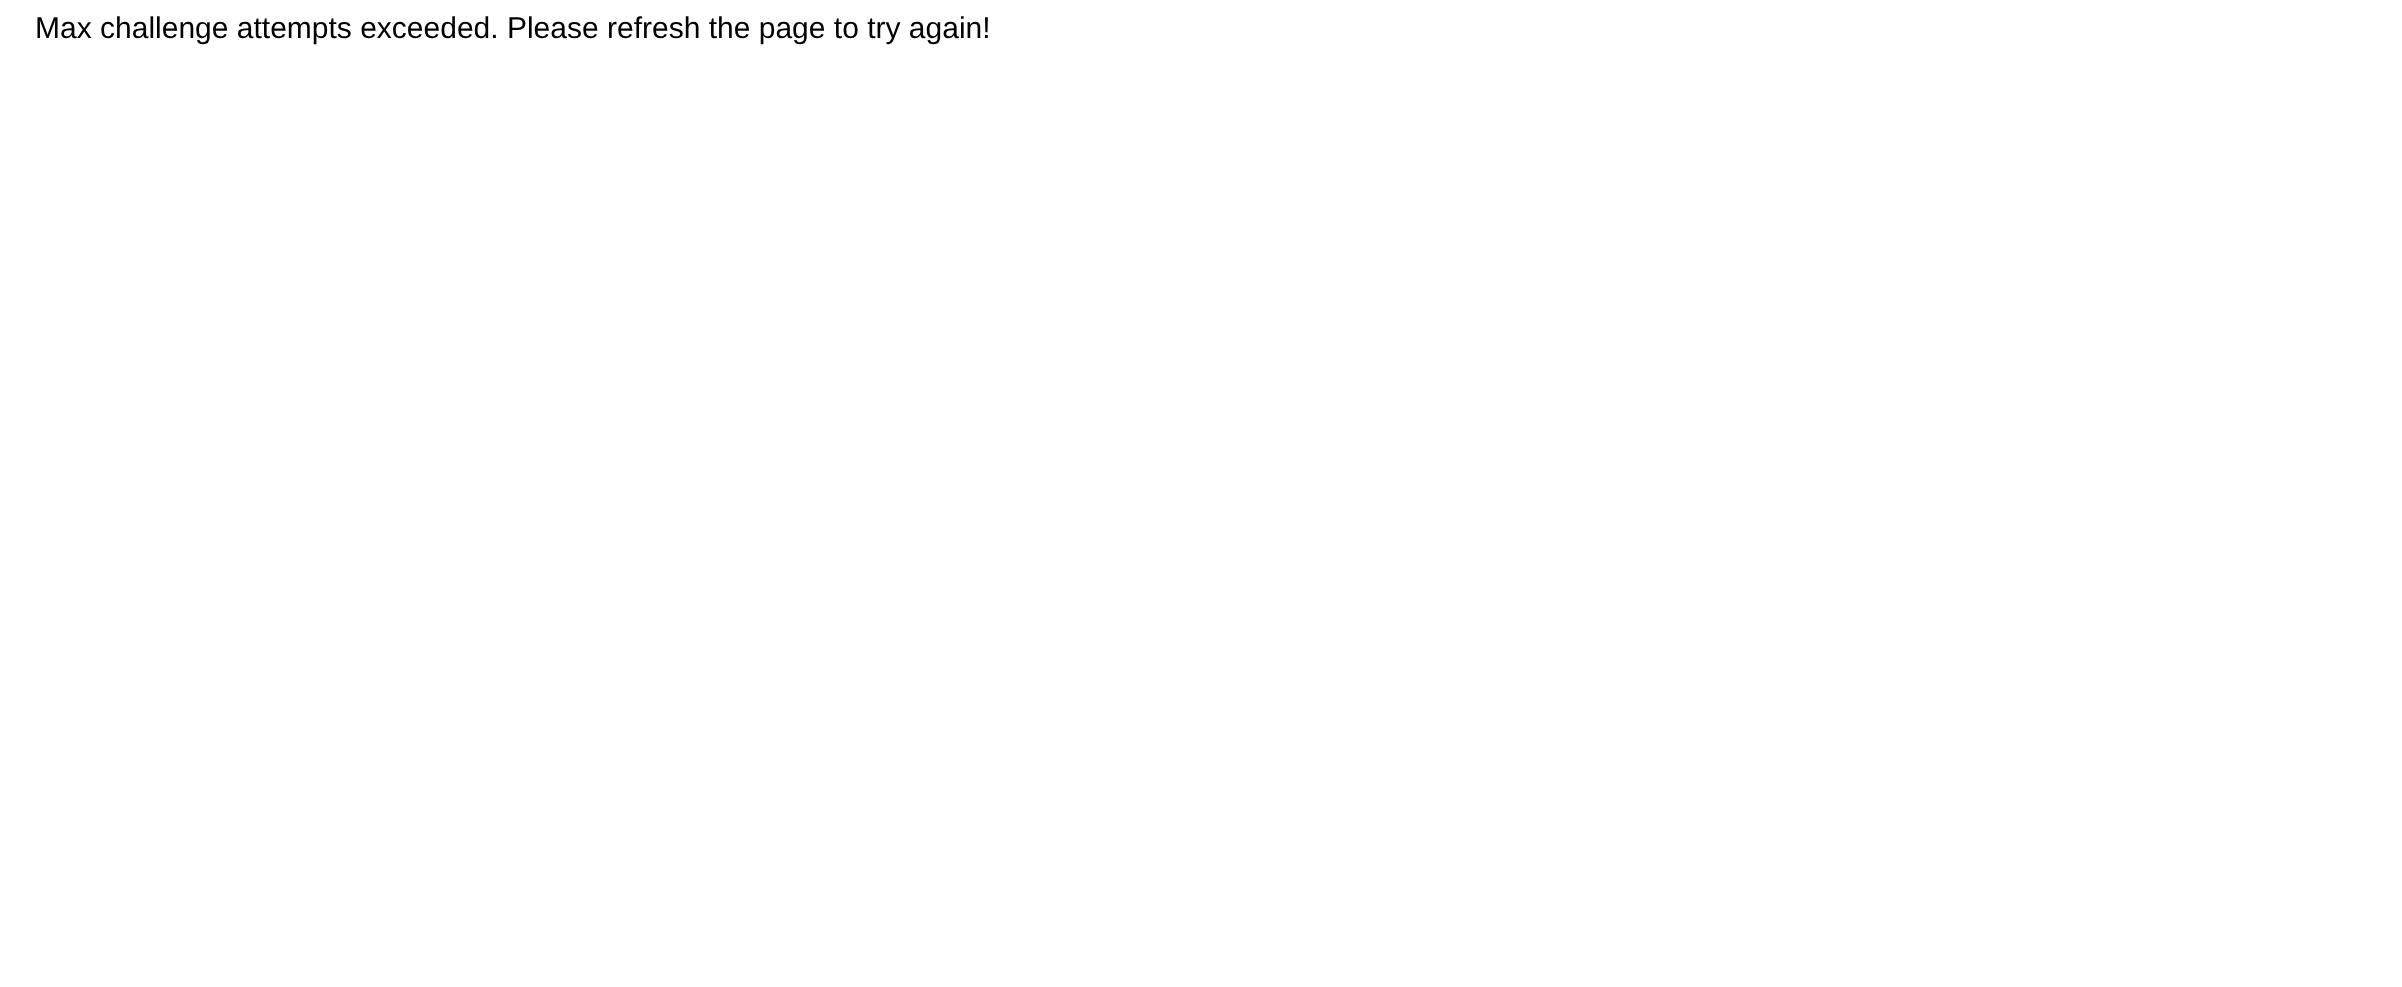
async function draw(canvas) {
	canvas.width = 2402;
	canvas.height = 987;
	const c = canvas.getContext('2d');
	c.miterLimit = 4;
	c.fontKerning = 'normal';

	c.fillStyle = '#fff';
	c.fillRect(0, 0, 2402, 987);
	c.font = '30px Liberation Sans';
	c.fillStyle = '#000';
	c.fillText('Max challenge attempts exceeded. Please refresh the page to try again!', 35, 38);
}

draw(document.querySelector('canvas'));
